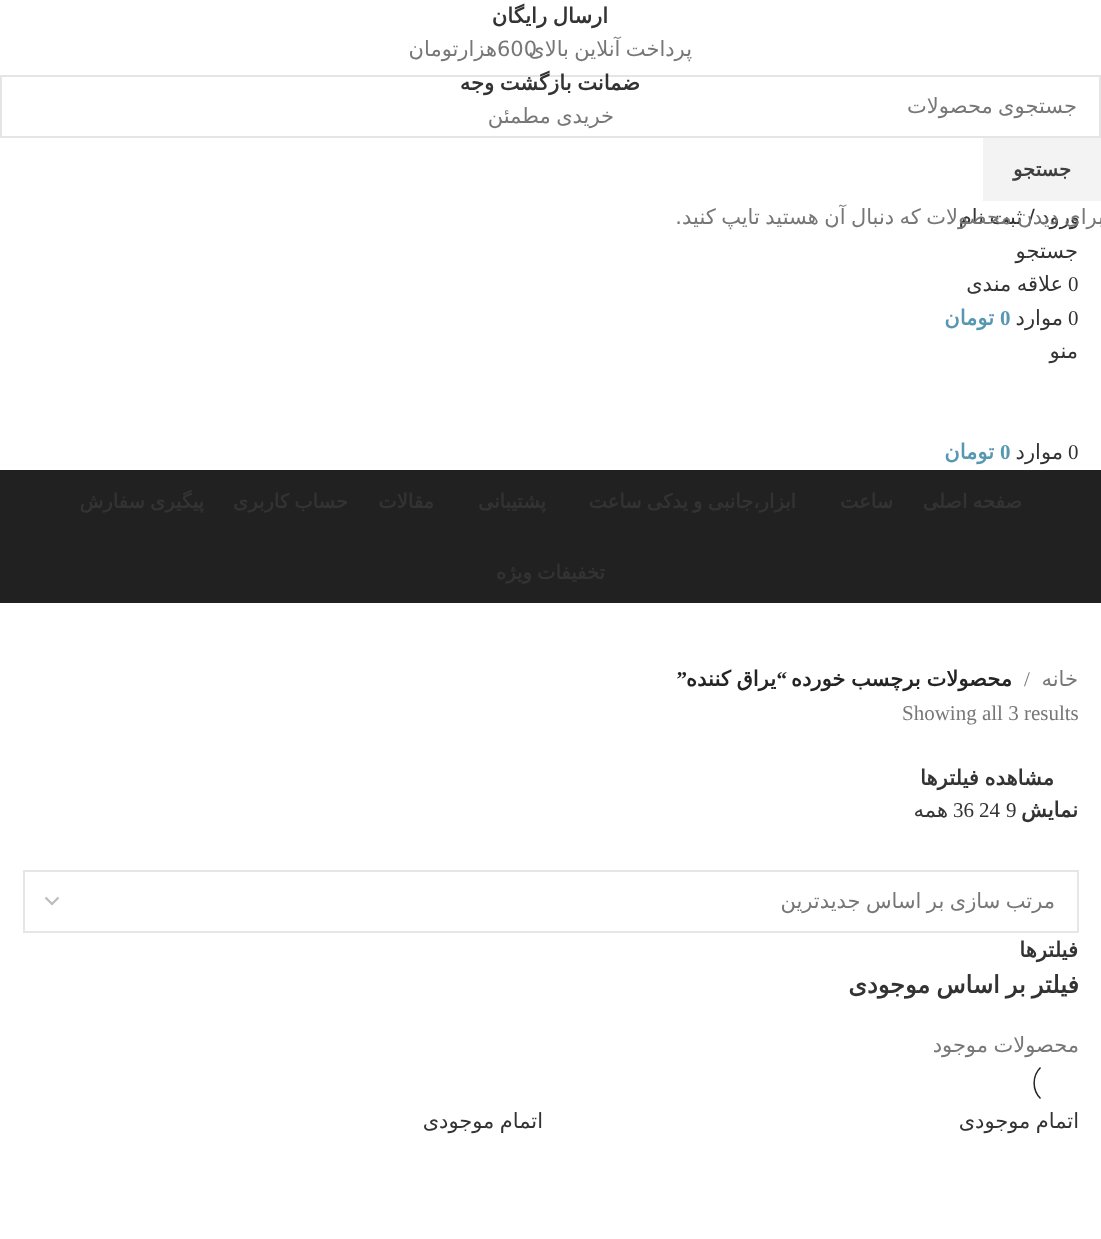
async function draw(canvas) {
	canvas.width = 1101;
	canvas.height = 1239;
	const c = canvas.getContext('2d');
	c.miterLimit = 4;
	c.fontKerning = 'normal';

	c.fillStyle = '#fff';
	c.fillRect(0, 0, 1101, 1239);
	c.wordSpacing = '-1px';
	c.direction = 'rtl';
	c.font = 'bold 21px DejaVu Sans';
	c.fillStyle = '#333';
	c.fillText('ارسال رایگان', 608, 23);
	c.wordSpacing = '0px';
	c.direction = 'ltr';
	c.font = '21px DejaVu Sans';
	c.fillStyle = '#777';
	c.fillText('600', 497, 56);
	c.wordSpacing = '-1.25px';
	c.direction = 'rtl';
	c.fillText('پرداخت آنلاین بالای', 692, 56);
	c.wordSpacing = '0px';
	c.fillText('هزارتومان', 497, 56);
	c.wordSpacing = '-1px';
	c.font = 'bold 21px DejaVu Sans';
	c.fillStyle = '#333';
	c.fillText('ضمانت بازگشت وجه', 640, 90);
	c.wordSpacing = '-1.25px';
	c.font = '21px DejaVu Sans';
	c.fillStyle = '#777';
	c.fillText('خریدی مطمئن', 614, 123);
	c.fillStyle = '#333';
	c.fillText('ورود / ثبت نام', 1080, 224);
	c.wordSpacing = '0px';
	c.fillText('جستجو', 1078, 258);
	c.direction = 'ltr';
	c.font = '21px Liberation Serif';
	c.fillText('0', 1068, 291);
	c.wordSpacing = '-1.25px';
	c.direction = 'rtl';
	c.font = '21px DejaVu Sans';
	c.fillText('علاقه مندی', 1063, 291);
	c.wordSpacing = '0px';
	c.direction = 'ltr';
	c.font = '21px Liberation Serif';
	c.fillText('0', 1068, 325);
	c.direction = 'rtl';
	c.font = '21px DejaVu Sans';
	c.fillText('موارد', 1063, 325);
	c.direction = 'ltr';
	c.font = 'bold 21px Liberation Serif';
	c.fillStyle = '#5797b2';
	c.fillText('0', 1000, 325);
	c.direction = 'rtl';
	c.font = 'bold 21px DejaVu Sans';
	c.fillText('تومان', 994, 325);
	c.font = '21px DejaVu Sans';
	c.fillStyle = '#333';
	c.fillText('منو', 1078, 358);
	c.direction = 'ltr';
	c.font = '21px Liberation Serif';
	c.fillText('0', 1068, 459);
	c.direction = 'rtl';
	c.font = '21px DejaVu Sans';
	c.fillText('موارد', 1063, 459);
	c.direction = 'ltr';
	c.font = 'bold 21px Liberation Serif';
	c.fillStyle = '#5797b2';
	c.fillText('0', 1000, 459);
	c.direction = 'rtl';
	c.font = 'bold 21px DejaVu Sans';
	c.fillText('تومان', 994, 459);
	c.fillStyle = '#212121';
	c.fillRect(0, 470, 1101, 133);
	c.wordSpacing = '-1px';
	c.font = 'bold 19.5px DejaVu Sans';
	c.fillStyle = '#333';
	c.fillText('صفحه اصلی', 1022, 508);
	c.wordSpacing = '0px';
	c.fillText('ساعت', 893, 508);
	c.wordSpacing = '-1px';
	c.fillText('ابزار،جانبی و یدکی ساعت', 796, 508);
	c.wordSpacing = '0px';
	c.fillText('پشتیبانی', 546, 508);
	c.fillText('مقالات', 434, 508);
	c.wordSpacing = '-1px';
	for (const [text, x, y] of [
		['حساب کاربری', 348, 508],
		['پیگیری سفارش', 204, 508],
		['تخفیفات ویژه', 605, 579],
	]) {
		c.fillText(text, x, y);
	}
	c.wordSpacing = '0px';
	c.font = '21px DejaVu Sans';
	c.fillStyle = '#777';
	c.fillText('خانه', 1078, 686);
	c.direction = 'ltr';
	c.font = '21px Liberation Serif';
	c.fillText('/', 1024, 686);
	c.wordSpacing = '-1px';
	c.direction = 'rtl';
	c.font = 'bold 21px DejaVu Sans';
	c.fillStyle = '#242424';
	c.fillText('محصولات برچسب خورده', 1012, 686);
	c.wordSpacing = '0px';
	c.font = 'bold 21px Liberation Serif';
	c.fillText('“', 787, 686);
	c.wordSpacing = '-1px';
	c.font = 'bold 21px DejaVu Sans';
	c.fillText('یراق کننده', 776, 686);
	c.wordSpacing = '0px';
	c.font = 'bold 21px Liberation Serif';
	c.fillText('”', 687, 686);
	c.direction = 'ltr';
	c.font = '21px Liberation Serif';
	c.fillStyle = '#777';
	c.fillText('Showing all 3 results', 902, 720);
	c.wordSpacing = '-1px';
	c.direction = 'rtl';
	c.font = 'bold 21px DejaVu Sans';
	c.fillStyle = '#333';
	c.fillText('مشاهده فیلترها', 1054, 785);
	c.wordSpacing = '0px';
	c.fillText('نمایش', 1078, 817);
	c.direction = 'ltr';
	c.font = '21px Liberation Serif';
	for (const [text, x, y] of [
		['9', 1006, 817],
		['24', 979, 817],
		['36', 953, 817],
	]) {
		c.fillText(text, x, y);
	}
	c.direction = 'rtl';
	c.font = '21px DejaVu Sans';
	c.fillText('همه', 948, 817);
	c.beginPath();
	c.moveTo(45.5, 897.5);
	c.lineTo(52, 904);
	c.lineTo(58.5, 897.5);
	c.strokeStyle = '#bbb';
	c.lineWidth = 2.2;
	c.stroke();
	c.strokeStyle = '#e6e6e6';
	c.lineWidth = 2;
	c.strokeRect(24, 871, 1054, 61);
	c.wordSpacing = '-1.25px';
	c.fillStyle = '#777';
	c.fillText('مرتب سازی بر اساس جدیدترین', 1055, 908);
	c.wordSpacing = '0px';
	c.font = 'bold 21px DejaVu Sans';
	c.fillStyle = '#333';
	c.fillText('فیلترها', 1078, 957);
	c.wordSpacing = '-1.5px';
	c.font = 'bold 24px DejaVu Sans';
	c.fillText('فیلتر بر اساس موجودی', 1079, 993);
	c.wordSpacing = '-1.25px';
	c.font = '21px DejaVu Sans';
	c.fillStyle = '#777';
	c.fillText('محصولات موجود', 1079, 1052);
	c.beginPath();
	c.moveTo(1040.5, 1098.5);
	c.bezierCurveTo(1032, 1090, 1032, 1076, 1040.5, 1067.5);
	c.strokeStyle = '#242424';
	c.lineWidth = 1.5;
	c.stroke();
	c.fillStyle = '#333';
	c.fillText('اتمام موجودی', 1079, 1128);
	c.fillText('اتمام موجودی', 543, 1128);
	c.strokeStyle = '#0000001a';
	c.lineWidth = 2;
	c.strokeRect(1, 76, 1099, 61);
	c.fillStyle = '#777';
	c.fillText('جستجوی محصولات', 1077, 113);
	c.fillStyle = '#f3f3f3';
	c.fillRect(983, 138, 118, 63);
	c.wordSpacing = '0px';
	c.font = 'bold 19.5px DejaVu Sans';
	c.fillStyle = '#3e3e3e';
	c.fillText('جستجو', 1071, 176);
	c.wordSpacing = '-1.25px';
	c.font = '21px DejaVu Sans';
	c.fillStyle = '#777';
	c.fillText('برای دیدن محصولات که دنبال آن هستید تایپ کنید.', 1104, 224);
}

draw(document.querySelector('canvas'));
